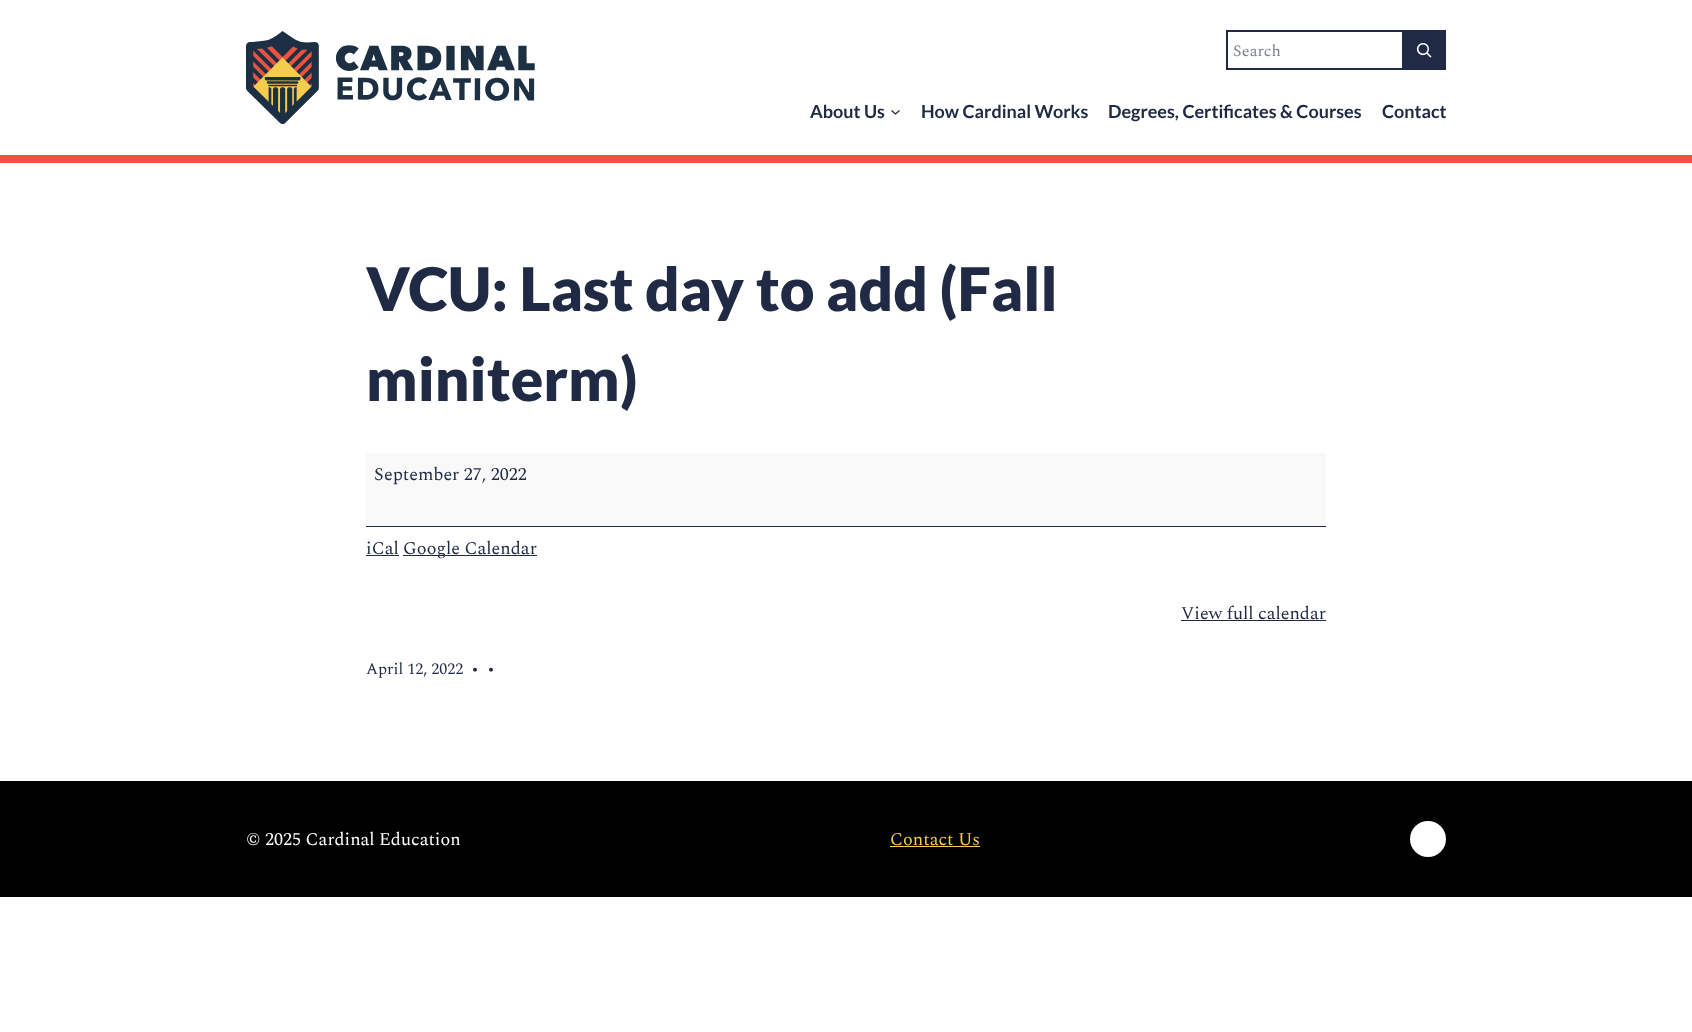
async function draw(canvas) {
	canvas.width = 1692;
	canvas.height = 1032;
	const c = canvas.getContext('2d');
	c.miterLimit = 4;
	c.fontKerning = 'normal';
	async function loadImage(src) {
		const img = new Image();
		img.src = src;
		await img.decode();
		return img;
	}

	c.fillStyle = '#fff';
	c.fillRect(0, 0, 1692, 1032);
	c.fillStyle = '#ee5340';
	c.fillRect(0, 155, 1692, 8);
	c.drawImage(await loadImage('img1.png'), 246, 31, 289, 93);
	c.strokeStyle = '#202a44';
	c.strokeRect(1226.5, 30.5, 219, 39);
	c.strokeRect(1227.5, 31.5, 175, 37);
	c.font = '16px Spectral';
	c.fillStyle = '#797f8f';
	c.fillText('Search', 1233, 56);
	c.fillStyle = '#202a44';
	c.fillRect(1403, 31, 42, 38);
	c.drawImage(await loadImage('img2.png'), 1416, 43, 16, 15);
	c.font = 'bold 18px Lato';
	c.fillText('About Us', 810, 118);
	c.beginPath();
	c.moveTo(891.5, 110.5);
	c.lineTo(895.5, 114);
	c.lineTo(899.5, 110.5);
	c.lineWidth = 1.3;
	c.stroke();
	for (const [text, x, y] of [
		['How Cardinal Works', 921, 118],
		['Degrees, Certificates & Courses', 1108, 118],
		['Contact', 1382, 118],
	]) {
		c.fillText(text, x, y);
	}
	c.font = '900 60px Lato';
	c.fillText('VCU: Last day to add (Fall', 366, 311);
	c.fillText('miniterm)', 366, 401);
	c.fillStyle = '#f9f9f9';
	c.fillRect(366, 453, 960, 73);
	c.fillStyle = '#202a44';
	c.fillRect(366, 526, 960, 1);
	c.font = '18px Spectral';
	c.fillText('September 27, 2022', 374, 480);
	c.fillText('iCal', 366, 554);
	c.fillRect(366, 555, 33, 1);
	c.fillRect(403, 555, 134, 1);
	c.fillText('Google Calendar', 403, 554);
	c.fillText('View full calendar', 1181, 619);
	c.fillRect(1181, 620, 145, 1);
	c.font = '16px Spectral';
	for (const [text, x, y] of [
		['April 12, 2022', 366, 674],
		['•', 471, 674],
		['•', 487, 674],
	]) {
		c.fillText(text, x, y);
	}
	c.fillStyle = '#000';
	c.fillRect(0, 781, 1692, 116);
	c.font = '18px Spectral';
	c.fillStyle = '#fff';
	c.fillText('© 2025 Cardinal Education', 246, 845);
	c.fillStyle = '#f4cd4e';
	c.fillText('Contact Us', 890, 845);
	c.fillRect(890, 846, 90, 1);
	c.fillStyle = '#fff';
	c.beginPath();
	c.arc(1428, 839, 18, 0, 2 * Math.PI);
	c.fill();
}

draw(document.querySelector('canvas'));
